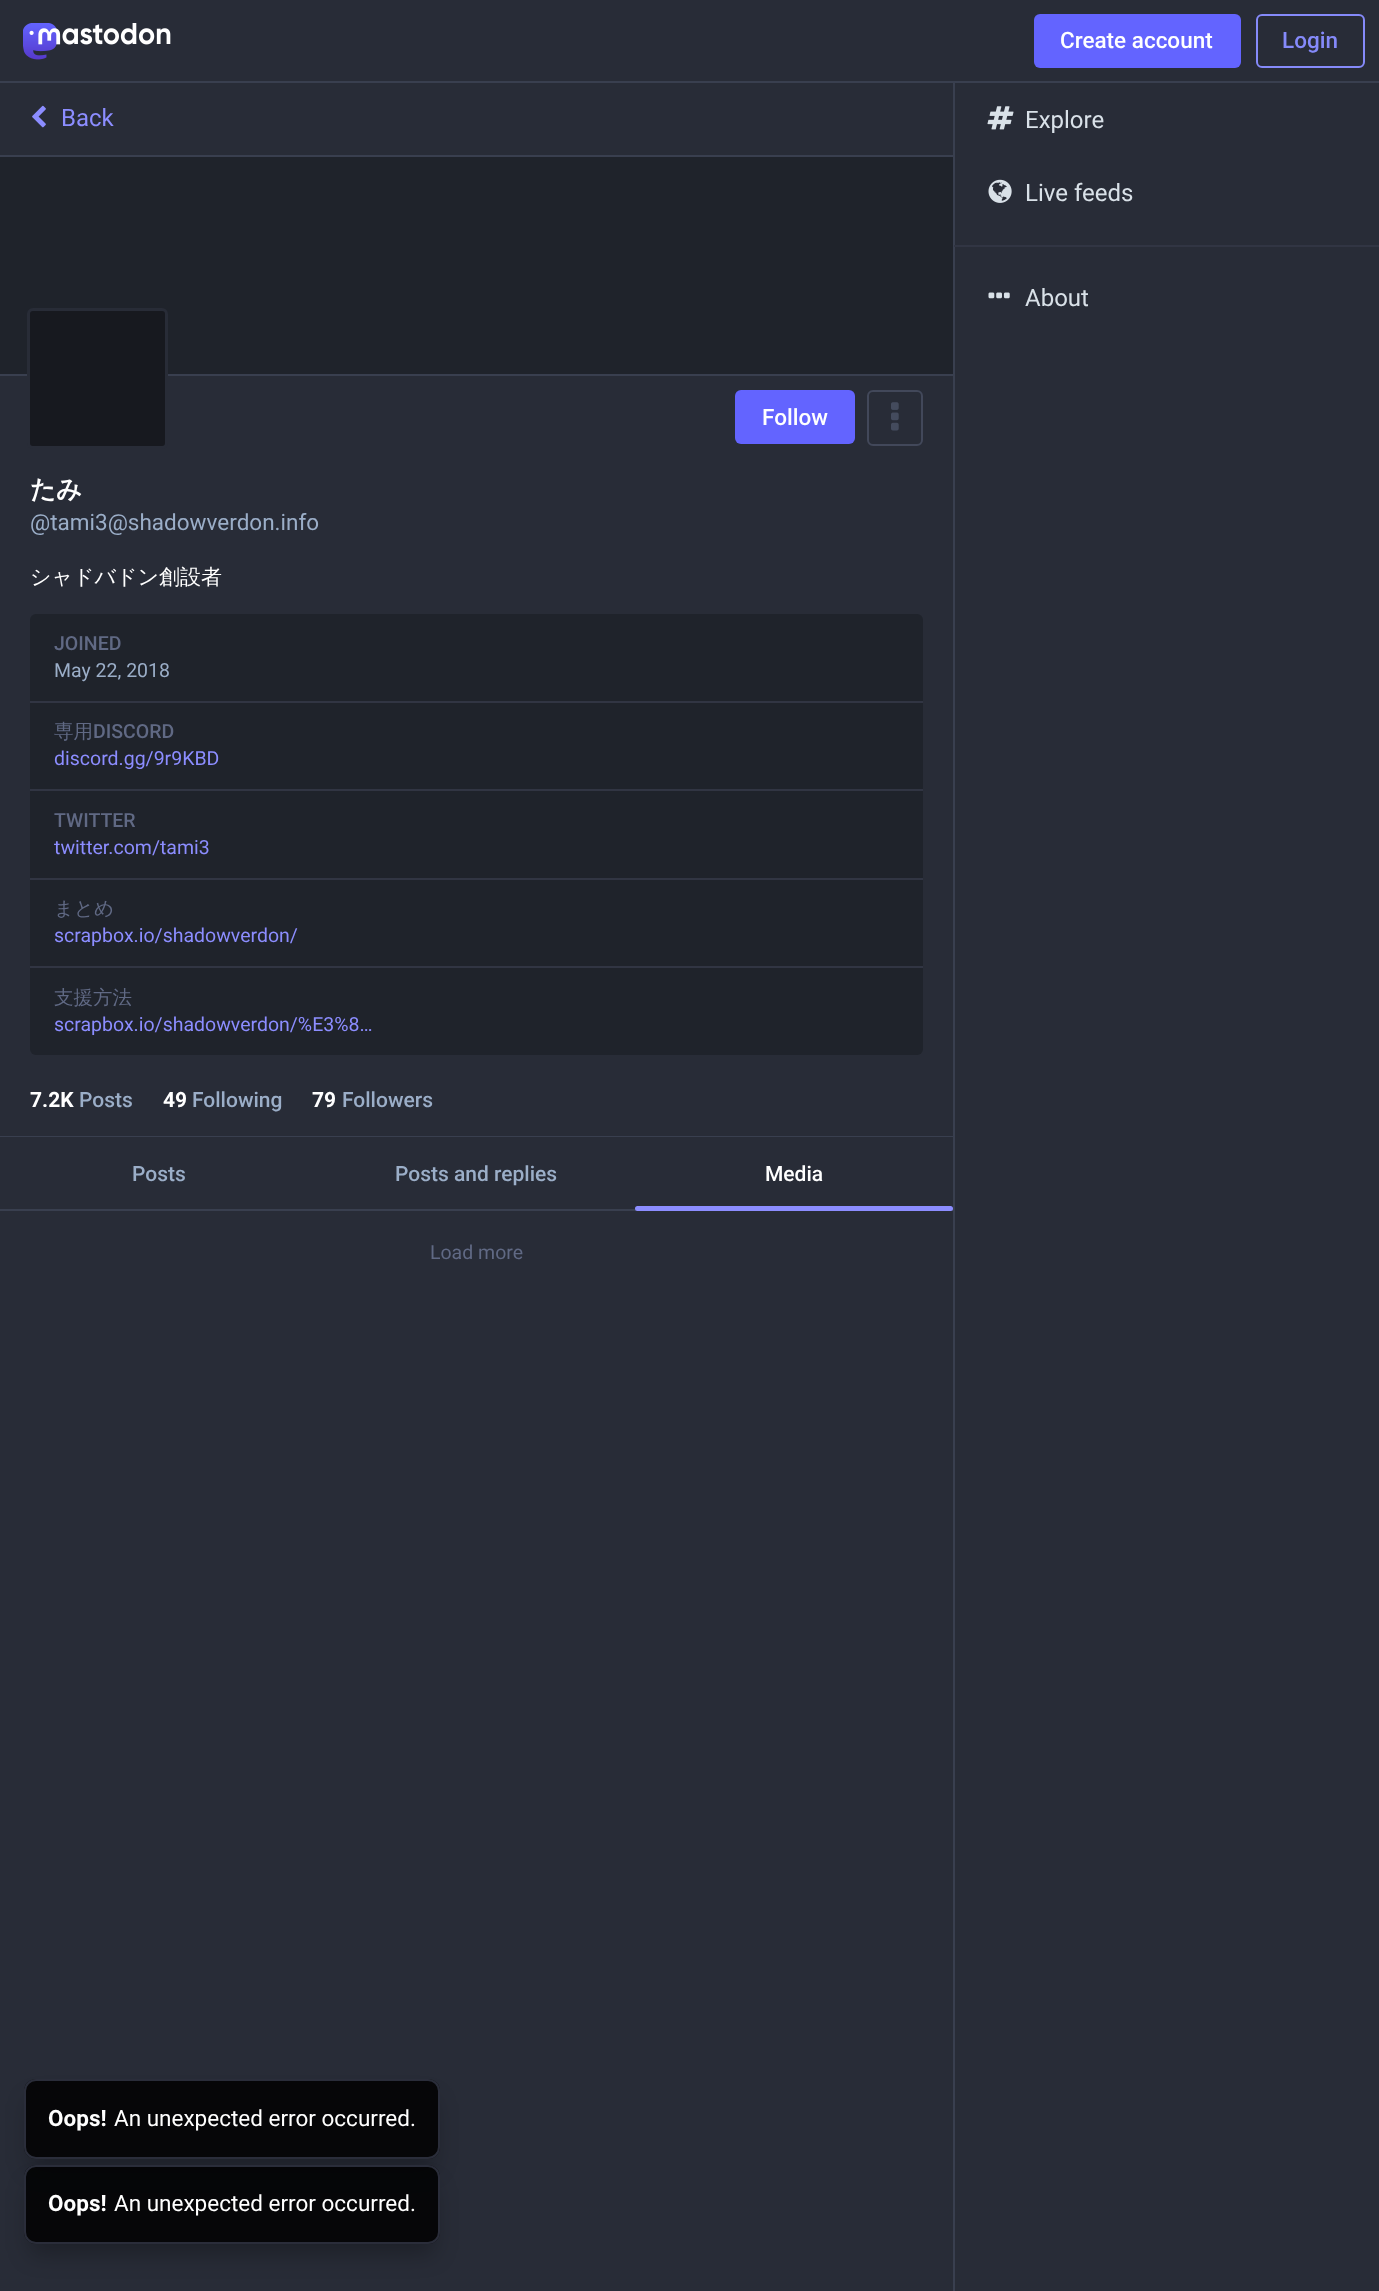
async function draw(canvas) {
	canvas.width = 1379;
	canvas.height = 2291;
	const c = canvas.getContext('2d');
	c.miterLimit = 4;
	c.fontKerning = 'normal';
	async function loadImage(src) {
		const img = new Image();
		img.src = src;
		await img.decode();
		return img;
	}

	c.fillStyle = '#282c37';
	c.fillRect(0, 0, 1379, 2291);
	c.fillStyle = '#393f4f';
	c.fillRect(0, 81, 1379, 2);
	c.drawImage(await loadImage('img1.png'), 23, 23, 148, 37);
	c.fillStyle = '#6364ff';
	c.beginPath();
	c.roundRect(1034, 14, 207, 54, 6);
	c.fill();
	c.font = '500 22.5px Roboto';
	c.fillStyle = '#fff';
	c.fillText('Create account', 1060, 48);
	c.beginPath();
	c.roundRect(1257, 15, 107, 52, 5);
	c.strokeStyle = '#858afa';
	c.lineWidth = 2;
	c.stroke();
	c.fillStyle = '#858afa';
	c.fillText('Login', 1282, 48);
	c.fillStyle = '#393f4f';
	c.fillRect(0, 155, 953, 2);
	c.drawImage(await loadImage('img2.png'), 32, 105, 14, 23);
	c.font = '24px Roboto';
	c.fillStyle = '#8c8dff';
	c.fillText('Back', 61, 126);
	for (const [x, y, w, h, color] of [
		[0, 157, 953, 217, '#1f232b'],
		[0, 374, 953, 2, '#393f4f'],
		[0, 1136, 953, 1, '#393f4f'],
	]) {
		c.fillStyle = color;
		c.fillRect(x, y, w, h);
	}
	c.fillStyle = '#17191f';
	c.beginPath();
	c.roundRect(28.5, 309.5, 138, 138, 4.5);
	c.fill();
	c.strokeStyle = '#282c37';
	c.lineWidth = 3;
	c.stroke();
	c.fillStyle = '#6364ff';
	c.beginPath();
	c.roundRect(735, 390, 120, 54, 6);
	c.fill();
	c.font = '500 22.5px Roboto';
	c.fillStyle = '#fff';
	c.fillText('Follow', 762, 425);
	c.beginPath();
	c.roundRect(868, 391, 54, 54, 5);
	c.strokeStyle = '#42485a';
	c.lineWidth = 2;
	c.stroke();
	c.drawImage(await loadImage('img3.png'), 891, 402, 8, 29);
	c.font = 'bold 25.5px WenQuanYi Zen Hei';
	c.fillText('たみ', 30, 498);
	c.font = '22.5px Roboto';
	c.fillStyle = '#9baec8';
	c.fillText('@tami3@shadowverdon.info', 30, 530);
	c.font = '500 21px WenQuanYi Zen Hei';
	c.fillStyle = '#fff';
	c.fillText('シャドバドン創設者', 30, 584);
	c.fillStyle = '#1f232b';
	c.beginPath();
	c.roundRect(30, 614, 893, 441, 6);
	c.fill();
	c.fillStyle = '#313543';
	c.fillRect(30, 701, 893, 2);
	c.font = '500 19.5px Roboto';
	c.fillStyle = '#606984';
	c.fillText('JOINED', 54, 650);
	c.font = '19.5px Roboto';
	c.fillStyle = '#9baec8';
	c.fillText('May 22, 2018', 54, 677);
	c.fillStyle = '#313543';
	c.fillRect(30, 789, 893, 2);
	c.font = '500 19.5px WenQuanYi Zen Hei';
	c.fillStyle = '#606984';
	c.fillText('専用', 54, 738);
	c.font = '500 19.5px Roboto';
	c.fillText('DISCORD', 93, 738);
	c.font = '19.5px Roboto';
	c.fillStyle = '#8c8dff';
	c.fillText('discord.gg/9r9KBD', 54, 765);
	c.fillStyle = '#313543';
	c.fillRect(30, 878, 893, 2);
	c.font = '500 19.5px Roboto';
	c.fillStyle = '#606984';
	c.fillText('TWITTER', 54, 827);
	c.font = '19.5px Roboto';
	c.fillStyle = '#8c8dff';
	c.fillText('twitter.com/tami3', 54, 854);
	c.fillStyle = '#313543';
	c.fillRect(30, 966, 893, 2);
	c.font = '500 19.5px WenQuanYi Zen Hei';
	c.fillStyle = '#606984';
	c.fillText('まとめ', 54, 915);
	c.font = '19.5px Roboto';
	c.fillStyle = '#8c8dff';
	c.fillText('scrapbox.io/shadowverdon/', 54, 942);
	c.font = '500 19.5px WenQuanYi Zen Hei';
	c.fillStyle = '#606984';
	c.fillText('支援方法', 54, 1004);
	c.font = '19.5px Roboto';
	c.fillStyle = '#8c8dff';
	c.fillText('scrapbox.io/shadowverdon/%E3%8…', 54, 1031);
	c.font = 'bold 21px Roboto';
	c.fillStyle = '#fff';
	c.fillText('7.2K', 30, 1107);
	c.font = '500 21px Roboto';
	c.fillStyle = '#9baec8';
	c.fillText('Posts', 79, 1107);
	c.font = 'bold 21px Roboto';
	c.fillStyle = '#fff';
	c.fillText('49', 163, 1107);
	c.font = '500 21px Roboto';
	c.fillStyle = '#9baec8';
	c.fillText('Following', 192, 1107);
	c.font = 'bold 21px Roboto';
	c.fillStyle = '#fff';
	c.fillText('79', 312, 1107);
	c.font = '500 21px Roboto';
	c.fillStyle = '#9baec8';
	c.fillText('Followers', 342, 1107);
	c.fillStyle = '#393f4f';
	c.fillRect(0, 1209, 953, 2);
	c.fillStyle = '#9baec8';
	c.fillText('Posts', 132, 1181);
	c.fillText('Posts and replies', 395, 1181);
	c.fillStyle = '#fff';
	c.fillText('Media', 765, 1181);
	c.fillStyle = '#8c8dff';
	c.beginPath();
	c.roundRect(635, 1206, 318, 5, 2.5);
	c.fill();
	c.font = '19.5px Roboto';
	c.fillStyle = '#606984';
	c.fillText('Load more', 430, 1259);
	c.fillStyle = '#393f4f';
	c.fillRect(953, 83, 2, 2208);
	c.drawImage(await loadImage('img4.png'), 987, 106, 27, 24);
	c.font = '24px Roboto';
	c.fillStyle = '#d9e1e8';
	c.fillText('Explore', 1025, 128);
	c.drawImage(await loadImage('img5.png'), 988, 179, 24, 24);
	c.fillText('Live feeds', 1025, 201);
	c.fillStyle = '#313543';
	c.fillRect(954, 245, 425, 2);
	c.drawImage(await loadImage('img6.png'), 988, 292, 22, 7);
	c.fillStyle = '#d9e1e8';
	c.fillText('About', 1025, 306);
	c.save();
	c.beginPath();
	c.moveTo(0, 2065);
	c.lineTo(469, 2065);
	c.lineTo(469, 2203);
	c.lineTo(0, 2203);
	c.closePath();
	c.moveTo(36, 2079);
	c.lineTo(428, 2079);
	c.bezierCurveTo(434.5, 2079, 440, 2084.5, 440, 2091);
	c.lineTo(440, 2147);
	c.bezierCurveTo(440, 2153.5, 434.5, 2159, 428, 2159);
	c.lineTo(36, 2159);
	c.bezierCurveTo(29.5, 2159, 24, 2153.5, 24, 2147);
	c.lineTo(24, 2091);
	c.bezierCurveTo(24, 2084.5, 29.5, 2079, 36, 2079);
	c.closePath();
	c.clip('evenodd');
	c.fillStyle = '#00000040';
	c.filter = 'blur(11px)';
	c.beginPath();
	c.roundRect(29, 2099, 406, 70, 8);
	c.fill();
	c.filter = 'none';
	c.restore();
	c.fillStyle = '#000000d9';
	c.beginPath();
	c.roundRect(24, 2079, 416, 80, 12);
	c.fill();
	c.beginPath();
	c.roundRect(25, 2080, 414, 78, 11);
	c.strokeStyle = '#313543d9';
	c.stroke();
	c.font = 'bold 22.5px Roboto';
	c.fillStyle = '#fff';
	c.fillText('Oops!', 48, 2126);
	c.font = '22.5px Roboto';
	c.fillText('An unexpected error occurred.', 114, 2126);
	c.save();
	c.beginPath();
	c.moveTo(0, 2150);
	c.lineTo(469, 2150);
	c.lineTo(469, 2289);
	c.lineTo(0, 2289);
	c.closePath();
	c.moveTo(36, 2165);
	c.lineTo(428, 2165);
	c.bezierCurveTo(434.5, 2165, 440, 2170.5, 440, 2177);
	c.lineTo(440, 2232);
	c.bezierCurveTo(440, 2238.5, 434.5, 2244, 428, 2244);
	c.lineTo(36, 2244);
	c.bezierCurveTo(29.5, 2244, 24, 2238.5, 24, 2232);
	c.lineTo(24, 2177);
	c.bezierCurveTo(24, 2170.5, 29.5, 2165, 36, 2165);
	c.closePath();
	c.clip('evenodd');
	c.fillStyle = '#00000040';
	c.filter = 'blur(11px)';
	c.beginPath();
	c.roundRect(29, 2184, 406, 71, 8);
	c.fill();
	c.filter = 'none';
	c.restore();
	c.fillStyle = '#000000d9';
	c.beginPath();
	c.roundRect(24, 2165, 416, 79, 12);
	c.fill();
	c.beginPath();
	c.roundRect(25, 2166, 414, 77, 11);
	c.stroke();
	c.font = 'bold 22.5px Roboto';
	c.fillStyle = '#fff';
	c.fillText('Oops!', 48, 2211);
	c.font = '22.5px Roboto';
	c.fillText('An unexpected error occurred.', 114, 2211);
}

draw(document.querySelector('canvas'));
